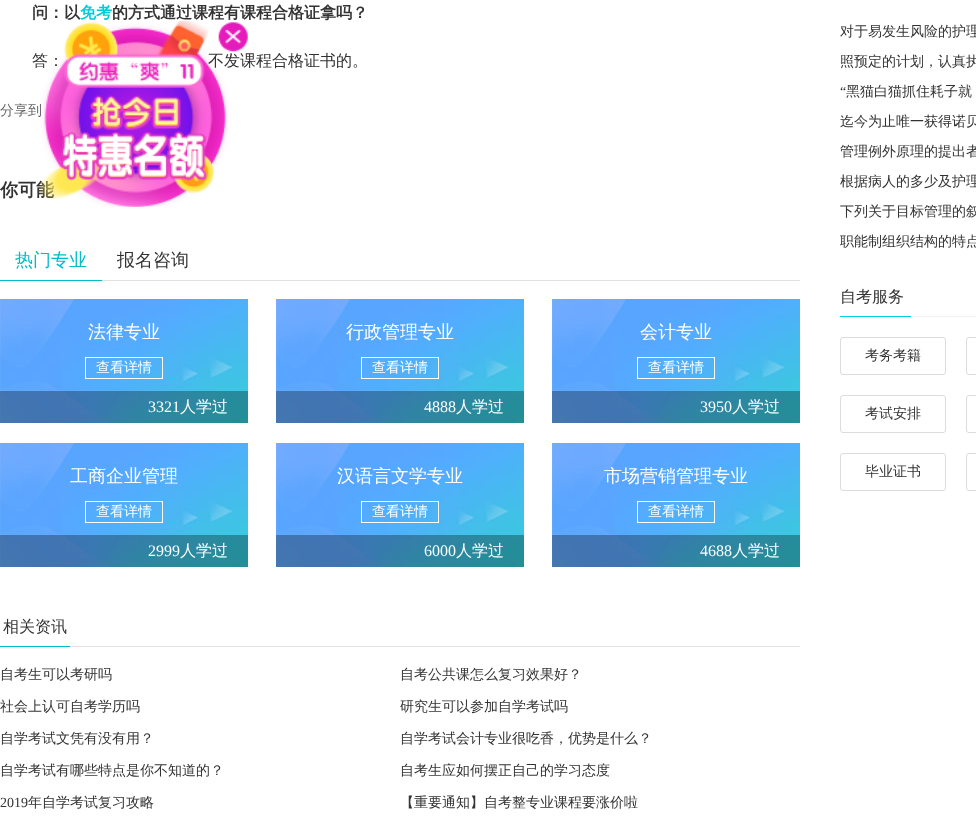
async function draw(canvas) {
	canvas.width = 976;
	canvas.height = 817;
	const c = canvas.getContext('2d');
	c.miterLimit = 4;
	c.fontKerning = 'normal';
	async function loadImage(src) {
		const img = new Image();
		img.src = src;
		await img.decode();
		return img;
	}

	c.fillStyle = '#fff';
	c.fillRect(0, 0, 976, 817);
	c.font = 'bold 16px WenQuanYi Zen Hei';
	c.fillStyle = '#333';
	c.fillText('问：以', 32, 18);
	c.fillStyle = '#00cbda';
	c.fillText('免考', 80, 18);
	c.fillStyle = '#333';
	c.fillText('的方式通过课程有课程合格证拿吗？', 112, 18);
	c.font = '500 16px WenQuanYi Zen Hei';
	c.fillText('答：', 32, 66);
	c.fillText('不发课程合格证书的。', 208, 66);
	c.font = '500 14px WenQuanYi Zen Hei';
	c.fillStyle = '#666';
	c.fillText('分享到', 0, 115);
	c.font = 'bold 18px WenQuanYi Zen Hei';
	c.fillStyle = '#333';
	c.fillText('你可能', 0, 196);
	c.fillStyle = '#e0e0e0';
	c.fillRect(102, 280, 698, 1);
	c.fillStyle = '#02bcc9';
	c.fillRect(0, 280, 102, 1);
	c.font = '500 18px WenQuanYi Zen Hei';
	c.fillText('热门专业', 15, 266);
	c.fillStyle = '#333';
	c.fillText('报名咨询', 117, 266);
	c.drawImage(await loadImage('img1.png'), 0, 299, 248, 124);
	c.fillStyle = '#fff';
	c.fillText('法律专业', 88, 338);
	c.strokeStyle = '#fff';
	c.strokeRect(85.5, 357.5, 77, 21);
	c.font = '500 14px WenQuanYi Zen Hei';
	c.fillText('查看详情', 96, 372);
	c.fillStyle = '#0000004d';
	c.fillRect(0, 391, 248, 32);
	c.font = '16px Liberation Serif';
	c.fillStyle = '#fff';
	c.fillText('3321', 148, 412);
	c.font = '500 16px WenQuanYi Zen Hei';
	c.fillText('人学过', 180, 412);
	c.drawImage(await loadImage('img1.png'), 276, 299, 248, 124);
	c.font = '500 18px WenQuanYi Zen Hei';
	c.fillText('行政管理专业', 346, 338);
	c.strokeRect(361.5, 357.5, 77, 21);
	c.font = '500 14px WenQuanYi Zen Hei';
	c.fillText('查看详情', 372, 372);
	c.fillStyle = '#0000004d';
	c.fillRect(276, 391, 248, 32);
	c.font = '16px Liberation Serif';
	c.fillStyle = '#fff';
	c.fillText('4888', 424, 412);
	c.font = '500 16px WenQuanYi Zen Hei';
	c.fillText('人学过', 456, 412);
	c.drawImage(await loadImage('img1.png'), 552, 299, 248, 124);
	c.font = '500 18px WenQuanYi Zen Hei';
	c.fillText('会计专业', 640, 338);
	c.strokeRect(637.5, 357.5, 77, 21);
	c.font = '500 14px WenQuanYi Zen Hei';
	c.fillText('查看详情', 648, 372);
	c.fillStyle = '#0000004d';
	c.fillRect(552, 391, 248, 32);
	c.font = '16px Liberation Serif';
	c.fillStyle = '#fff';
	c.fillText('3950', 700, 412);
	c.font = '500 16px WenQuanYi Zen Hei';
	c.fillText('人学过', 732, 412);
	c.drawImage(await loadImage('img1.png'), 0, 443, 248, 124);
	c.font = '500 18px WenQuanYi Zen Hei';
	c.fillText('工商企业管理', 70, 482);
	c.strokeRect(85.5, 501.5, 77, 21);
	c.font = '500 14px WenQuanYi Zen Hei';
	c.fillText('查看详情', 96, 516);
	c.fillStyle = '#0000004d';
	c.fillRect(0, 535, 248, 32);
	c.font = '16px Liberation Serif';
	c.fillStyle = '#fff';
	c.fillText('2999', 148, 556);
	c.font = '500 16px WenQuanYi Zen Hei';
	c.fillText('人学过', 180, 556);
	c.drawImage(await loadImage('img1.png'), 276, 443, 248, 124);
	c.font = '500 18px WenQuanYi Zen Hei';
	c.fillText('汉语言文学专业', 337, 482);
	c.strokeRect(361.5, 501.5, 77, 21);
	c.font = '500 14px WenQuanYi Zen Hei';
	c.fillText('查看详情', 372, 516);
	c.fillStyle = '#0000004d';
	c.fillRect(276, 535, 248, 32);
	c.font = '16px Liberation Serif';
	c.fillStyle = '#fff';
	c.fillText('6000', 424, 556);
	c.font = '500 16px WenQuanYi Zen Hei';
	c.fillText('人学过', 456, 556);
	c.drawImage(await loadImage('img1.png'), 552, 443, 248, 124);
	c.font = '500 18px WenQuanYi Zen Hei';
	c.fillText('市场营销管理专业', 604, 482);
	c.strokeRect(637.5, 501.5, 77, 21);
	c.font = '500 14px WenQuanYi Zen Hei';
	c.fillText('查看详情', 648, 516);
	c.fillStyle = '#0000004d';
	c.fillRect(552, 535, 248, 32);
	c.font = '16px Liberation Serif';
	c.fillStyle = '#fff';
	c.fillText('4688', 700, 556);
	c.font = '500 16px WenQuanYi Zen Hei';
	c.fillText('人学过', 732, 556);
	c.fillStyle = '#e0e0e0';
	c.fillRect(70, 646, 730, 1);
	c.fillStyle = '#02bcc9';
	c.fillRect(0, 646, 70, 1);
	c.fillStyle = '#333';
	c.fillText('相关资讯', 3, 632);
	c.font = '500 14px WenQuanYi Zen Hei';
	for (const [text, x, y] of [
		['自考生可以考研吗', 0, 679],
		['自考公共课怎么复习效果好？', 400, 679],
		['社会上认可自考学历吗', 0, 711],
		['研究生可以参加自学考试吗', 400, 711],
		['自学考试文凭有没有用？', 0, 743],
		['自学考试会计专业很吃香，优势是什么？', 400, 743],
		['自学考试有哪些特点是你不知道的？', 0, 775],
		['自考生应如何摆正自己的学习态度', 400, 775],
	]) {
		c.fillText(text, x, y);
	}
	c.font = '14px Liberation Serif';
	c.fillText('2019', 0, 807);
	c.font = '500 14px WenQuanYi Zen Hei';
	for (const [text, x, y] of [
		['年自学考试复习攻略', 28, 807],
		['【重要通知】自考整专业课程要涨价啦', 400, 807],
		['对于易发生风险的护理', 840, 36],
		['照预定的计划，认真执', 840, 66],
	]) {
		c.fillText(text, x, y);
	}
	c.font = '14px Liberation Serif';
	c.fillText('“', 840, 96);
	c.font = '500 14px WenQuanYi Zen Hei';
	for (const [text, x, y] of [
		['黑猫白猫抓住耗子就', 846, 96],
		['迄今为止唯一获得诺贝', 840, 126],
		['管理例外原理的提出者', 840, 156],
		['根据病人的多少及护理', 840, 186],
		['下列关于目标管理的叙', 840, 216],
		['职能制组织结构的特点', 840, 246],
	]) {
		c.fillText(text, x, y);
	}
	c.fillStyle = '#f1f1f1';
	c.fillRect(911, 316, 65, 1);
	c.fillStyle = '#00cfdd';
	c.fillRect(840, 316, 71, 1);
	c.font = '500 16px WenQuanYi Zen Hei';
	c.fillStyle = '#333';
	c.fillText('自考服务', 840, 302);
	c.beginPath();
	c.roundRect(840.5, 337.5, 105, 37, 2.5);
	c.strokeStyle = '#dcdcdc';
	c.stroke();
	c.font = '500 14px WenQuanYi Zen Hei';
	c.fillText('考务考籍', 865, 360);
	c.beginPath();
	c.roundRect(966.5, 337.5, 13, 37, 2.5);
	c.stroke();
	c.beginPath();
	c.roundRect(840.5, 395.5, 105, 37, 2.5);
	c.stroke();
	c.fillText('考试安排', 865, 418);
	c.beginPath();
	c.roundRect(966.5, 395.5, 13, 37, 2.5);
	c.stroke();
	c.beginPath();
	c.roundRect(840.5, 453.5, 105, 37, 2.5);
	c.stroke();
	c.fillText('毕业证书', 865, 476);
	c.beginPath();
	c.roundRect(966.5, 453.5, 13, 37, 2.5);
	c.stroke();
	c.drawImage(await loadImage('img2.png'), 38, 21, 210, 186);
}

draw(document.querySelector('canvas'));
